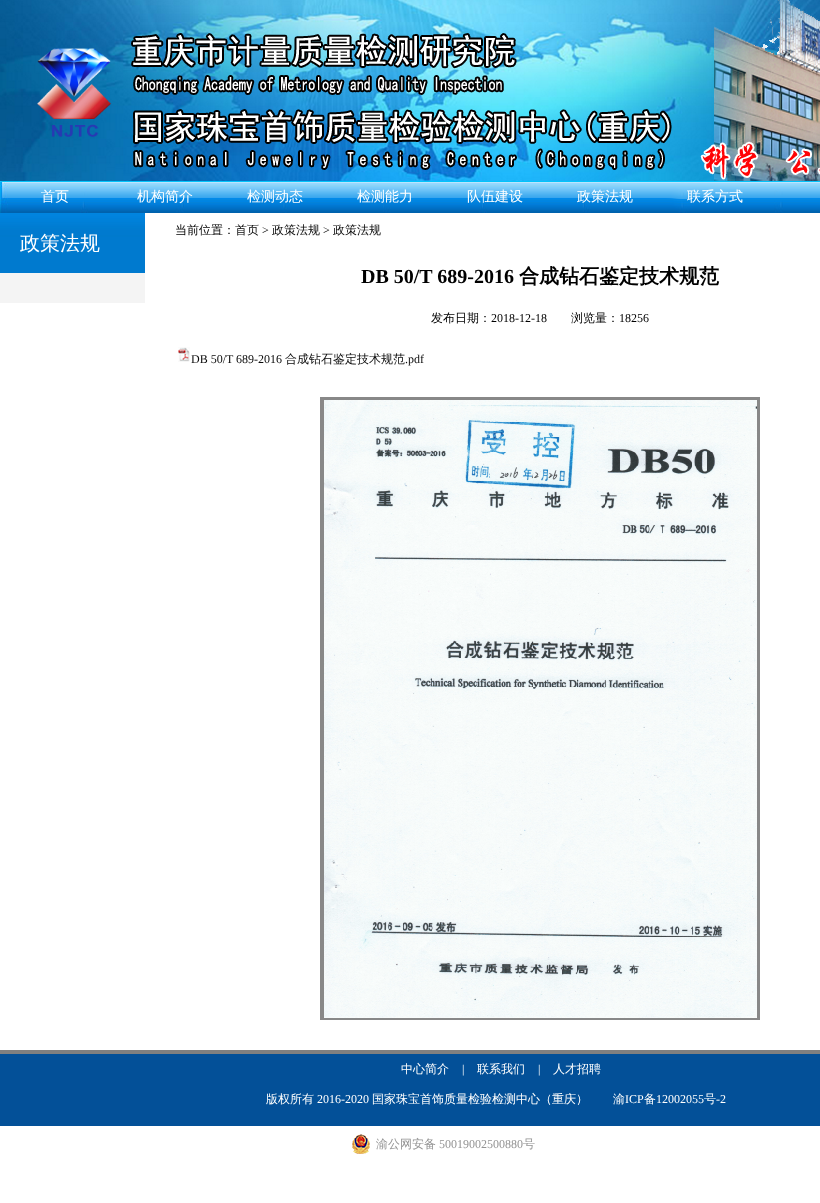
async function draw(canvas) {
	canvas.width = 820;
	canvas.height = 1203;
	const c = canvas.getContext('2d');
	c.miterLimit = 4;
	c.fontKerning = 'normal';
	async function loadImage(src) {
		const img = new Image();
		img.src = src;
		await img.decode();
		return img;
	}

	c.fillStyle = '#fff';
	c.fillRect(0, 0, 820, 1203);
	c.drawImage(await loadImage('img1.png'), 0, 0, 820, 181);
	c.drawImage(await loadImage('img2.png'), 37, 48, 74, 89);
	c.drawImage(await loadImage('img3.png'), 0, 181, 820, 32);
	c.font = '500 14px WenQuanYi Zen Hei';
	for (const [text, x, y] of [
		['首页', 41, 201],
		['机构简介', 137, 201],
		['检测动态', 247, 201],
		['检测能力', 357, 201],
		['队伍建设', 467, 201],
		['政策法规', 577, 201],
		['联系方式', 687, 201],
	]) {
		c.fillText(text, x, y);
	}
	c.drawImage(await loadImage('img4.png'), 0, 213, 145, 60);
	c.font = '500 20px WenQuanYi Zen Hei';
	c.fillText('政策法规', 20, 250);
	c.fillStyle = '#f4f4f4';
	c.fillRect(0, 273, 145, 30);
	c.font = '500 12px WenQuanYi Zen Hei';
	c.fillStyle = '#000';
	c.fillText('当前位置：', 175, 234);
	c.fillStyle = '#0a0a0a';
	c.fillText('首页', 235, 234);
	c.font = '12px Liberation Serif';
	c.fillStyle = '#000';
	c.fillText('>', 262, 234);
	c.font = '500 12px WenQuanYi Zen Hei';
	c.fillStyle = '#0a0a0a';
	c.fillText('政策法规', 272, 234);
	c.font = '12px Liberation Serif';
	c.fillStyle = '#000';
	c.fillText('>', 323, 234);
	c.font = '500 12px WenQuanYi Zen Hei';
	c.fillStyle = '#0a0a0a';
	c.fillText('政策法规', 333, 234);
	c.font = 'bold 20px Liberation Serif';
	c.fillStyle = '#000';
	c.fillText('DB 50/T 689-2016', 361, 283);
	c.font = 'bold 20px WenQuanYi Zen Hei';
	c.fillText('合成钻石鉴定技术规范', 519, 283);
	c.font = '500 12px WenQuanYi Zen Hei';
	c.fillText('发布日期：', 431, 322);
	c.font = '12px Liberation Serif';
	c.fillText('2018-12-18', 491, 322);
	c.font = '500 12px WenQuanYi Zen Hei';
	c.fillText('浏览量：', 571, 322);
	c.font = '12px Liberation Serif';
	c.fillText('18256', 619, 322);
	c.drawImage(await loadImage('img5.png'), 178, 347, 12, 15);
	c.fillStyle = '#0a0a0a';
	c.fillText('DB 50/T 689-2016', 191, 363);
	c.font = '500 12px WenQuanYi Zen Hei';
	c.fillText('合成钻石鉴定技术规范', 285, 363);
	c.font = '12px Liberation Serif';
	c.fillText('.pdf', 405, 363);
	c.drawImage(await loadImage('img6.png'), 320, 397, 440, 623);
	c.fillStyle = '#035098';
	c.fillRect(0, 1054, 820, 72);
	c.fillStyle = '#808080';
	c.fillRect(0, 1050, 820, 4);
	c.font = '500 12px WenQuanYi Zen Hei';
	c.fillStyle = '#fff';
	c.fillText('中心简介', 401, 1073);
	c.font = '12px Liberation Serif';
	c.fillText('|', 462, 1073);
	c.font = '500 12px WenQuanYi Zen Hei';
	c.fillText('联系我们', 477, 1073);
	c.font = '12px Liberation Serif';
	c.fillText('|', 538, 1073);
	c.font = '500 12px WenQuanYi Zen Hei';
	c.fillText('人才招聘', 553, 1073);
	c.fillText('版权所有', 266, 1103);
	c.font = '12px Liberation Serif';
	c.fillText('2016-2020', 317, 1103);
	c.font = '500 12px WenQuanYi Zen Hei';
	c.fillText('国家珠宝首饰质量检验检测中心（重庆）', 372, 1103);
	c.fillText('渝', 613, 1103);
	c.font = '12px Liberation Serif';
	c.fillText('ICP', 625, 1103);
	c.font = '500 12px WenQuanYi Zen Hei';
	c.fillText('备', 644, 1103);
	c.font = '12px Liberation Serif';
	c.fillText('12002055', 656, 1103);
	c.font = '500 12px WenQuanYi Zen Hei';
	c.fillText('号', 704, 1103);
	c.font = '12px Liberation Serif';
	c.fillText('-2', 716, 1103);
	c.drawImage(await loadImage('img7.png'), 352, 1134, 18, 20);
	c.font = '500 12px WenQuanYi Zen Hei';
	c.fillStyle = '#939393';
	c.fillText('渝公网安备', 376, 1148);
	c.font = '12px Liberation Serif';
	c.fillText('50019002500880', 439, 1148);
	c.font = '500 12px WenQuanYi Zen Hei';
	c.fillText('号', 523, 1148);
}

draw(document.querySelector('canvas'));
